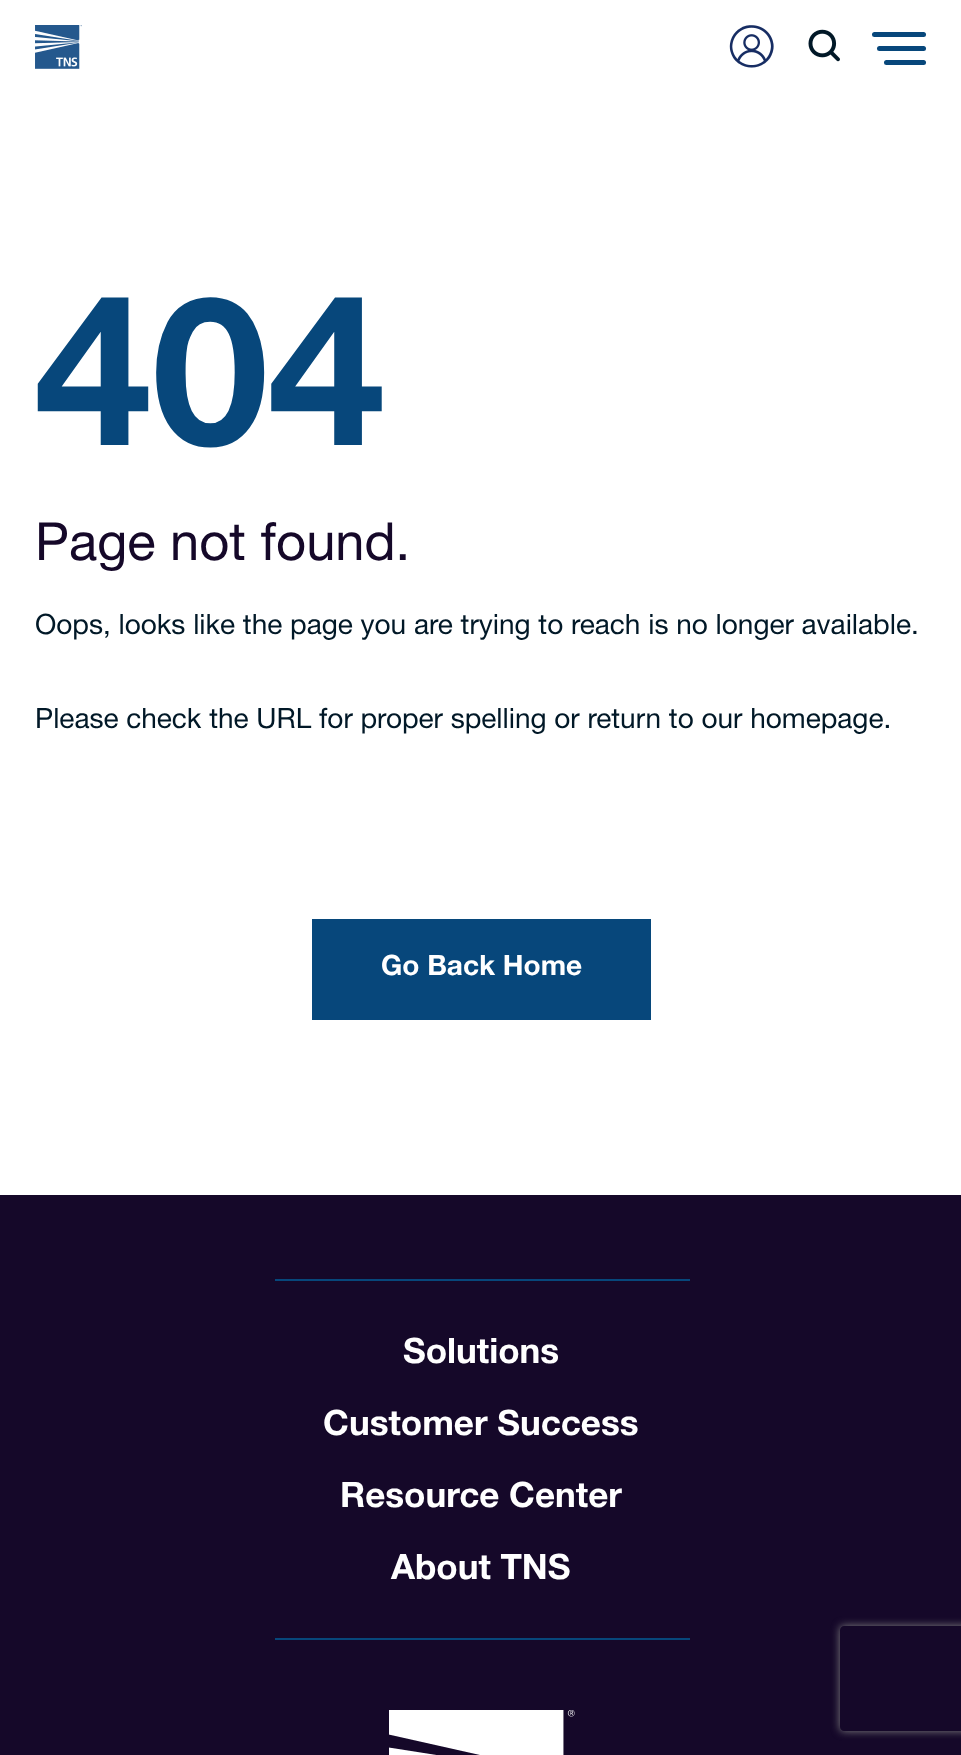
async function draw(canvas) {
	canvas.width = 961;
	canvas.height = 1755;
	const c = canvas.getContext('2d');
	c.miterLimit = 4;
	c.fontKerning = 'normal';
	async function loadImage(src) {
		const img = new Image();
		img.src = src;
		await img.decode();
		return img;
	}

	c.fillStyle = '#fff';
	c.fillRect(0, 0, 961, 1755);
	c.drawImage(await loadImage('img1.png'), 35, 25, 47, 44);
	c.drawImage(await loadImage('img2.png'), 729, 25, 45, 43);
	c.drawImage(await loadImage('img3.png'), 808, 29, 32, 33);
	c.fillStyle = '#07477b';
	c.beginPath();
	c.roundRect(877, 46, 49, 5, 2.5);
	c.fill();
	c.beginPath();
	c.roundRect(872, 32, 54, 5, 2.5);
	c.fill();
	c.beginPath();
	c.roundRect(884, 60, 42, 5, 2.5);
	c.fill();
	c.font = 'bold 210px Helvetica Neue';
	c.fillText('404', 35, 445);
	c.font = '52.5px Helvetica Neue';
	c.fillStyle = '#150829';
	c.fillText('Page not found.', 35, 560);
	c.font = '28px Helvetica Neue';
	c.fillStyle = '#011827';
	c.fillText('Oops, looks like the page you are trying to reach is no longer available.', 35, 634);
	c.fillText('Please check the URL for proper spelling or return to our homepage.', 35, 728);
	c.fillStyle = '#07477b';
	c.fillRect(312, 919, 339, 101);
	c.font = 'bold 28px "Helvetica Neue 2"';
	c.fillStyle = '#fff';
	c.fillText('Go Back Home', 381, 975);
	for (const [x, y, w, h, color] of [
		[0, 1195, 961, 560, '#150829'],
		[275, 1279, 415, 2, '#07477b'],
		[275, 1638, 415, 2, '#07477b'],
	]) {
		c.fillStyle = color;
		c.fillRect(x, y, w, h);
	}
	c.font = 'bold 35px "Helvetica Neue 2"';
	c.fillStyle = '#fff';
	for (const [text, x, y] of [
		['Solutions', 403, 1363],
		['Customer Success', 323, 1435],
		['Resource Center', 340, 1507],
		['About TNS', 391, 1579],
	]) {
		c.fillText(text, x, y);
	}
	c.drawImage(await loadImage('img4.png'), 389, 1710, 186, 45);
	c.save();
	c.beginPath();
	c.moveTo(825, 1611);
	c.lineTo(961, 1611);
	c.lineTo(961, 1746);
	c.lineTo(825, 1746);
	c.closePath();
	c.moveTo(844, 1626);
	c.lineTo(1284, 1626);
	c.bezierCurveTo(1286, 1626, 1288, 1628, 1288, 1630);
	c.lineTo(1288, 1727);
	c.bezierCurveTo(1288, 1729, 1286, 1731, 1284, 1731);
	c.lineTo(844, 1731);
	c.bezierCurveTo(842, 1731, 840, 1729, 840, 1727);
	c.lineTo(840, 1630);
	c.bezierCurveTo(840, 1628, 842, 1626, 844, 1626);
	c.closePath();
	c.clip('evenodd');
	c.fillStyle = '#808080';
	c.filter = 'blur(4.5px)';
	c.beginPath();
	c.roundRect(840, 1626, 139, 105, 4);
	c.fill();
	c.filter = 'none';
	c.restore();
}

draw(document.querySelector('canvas'));
